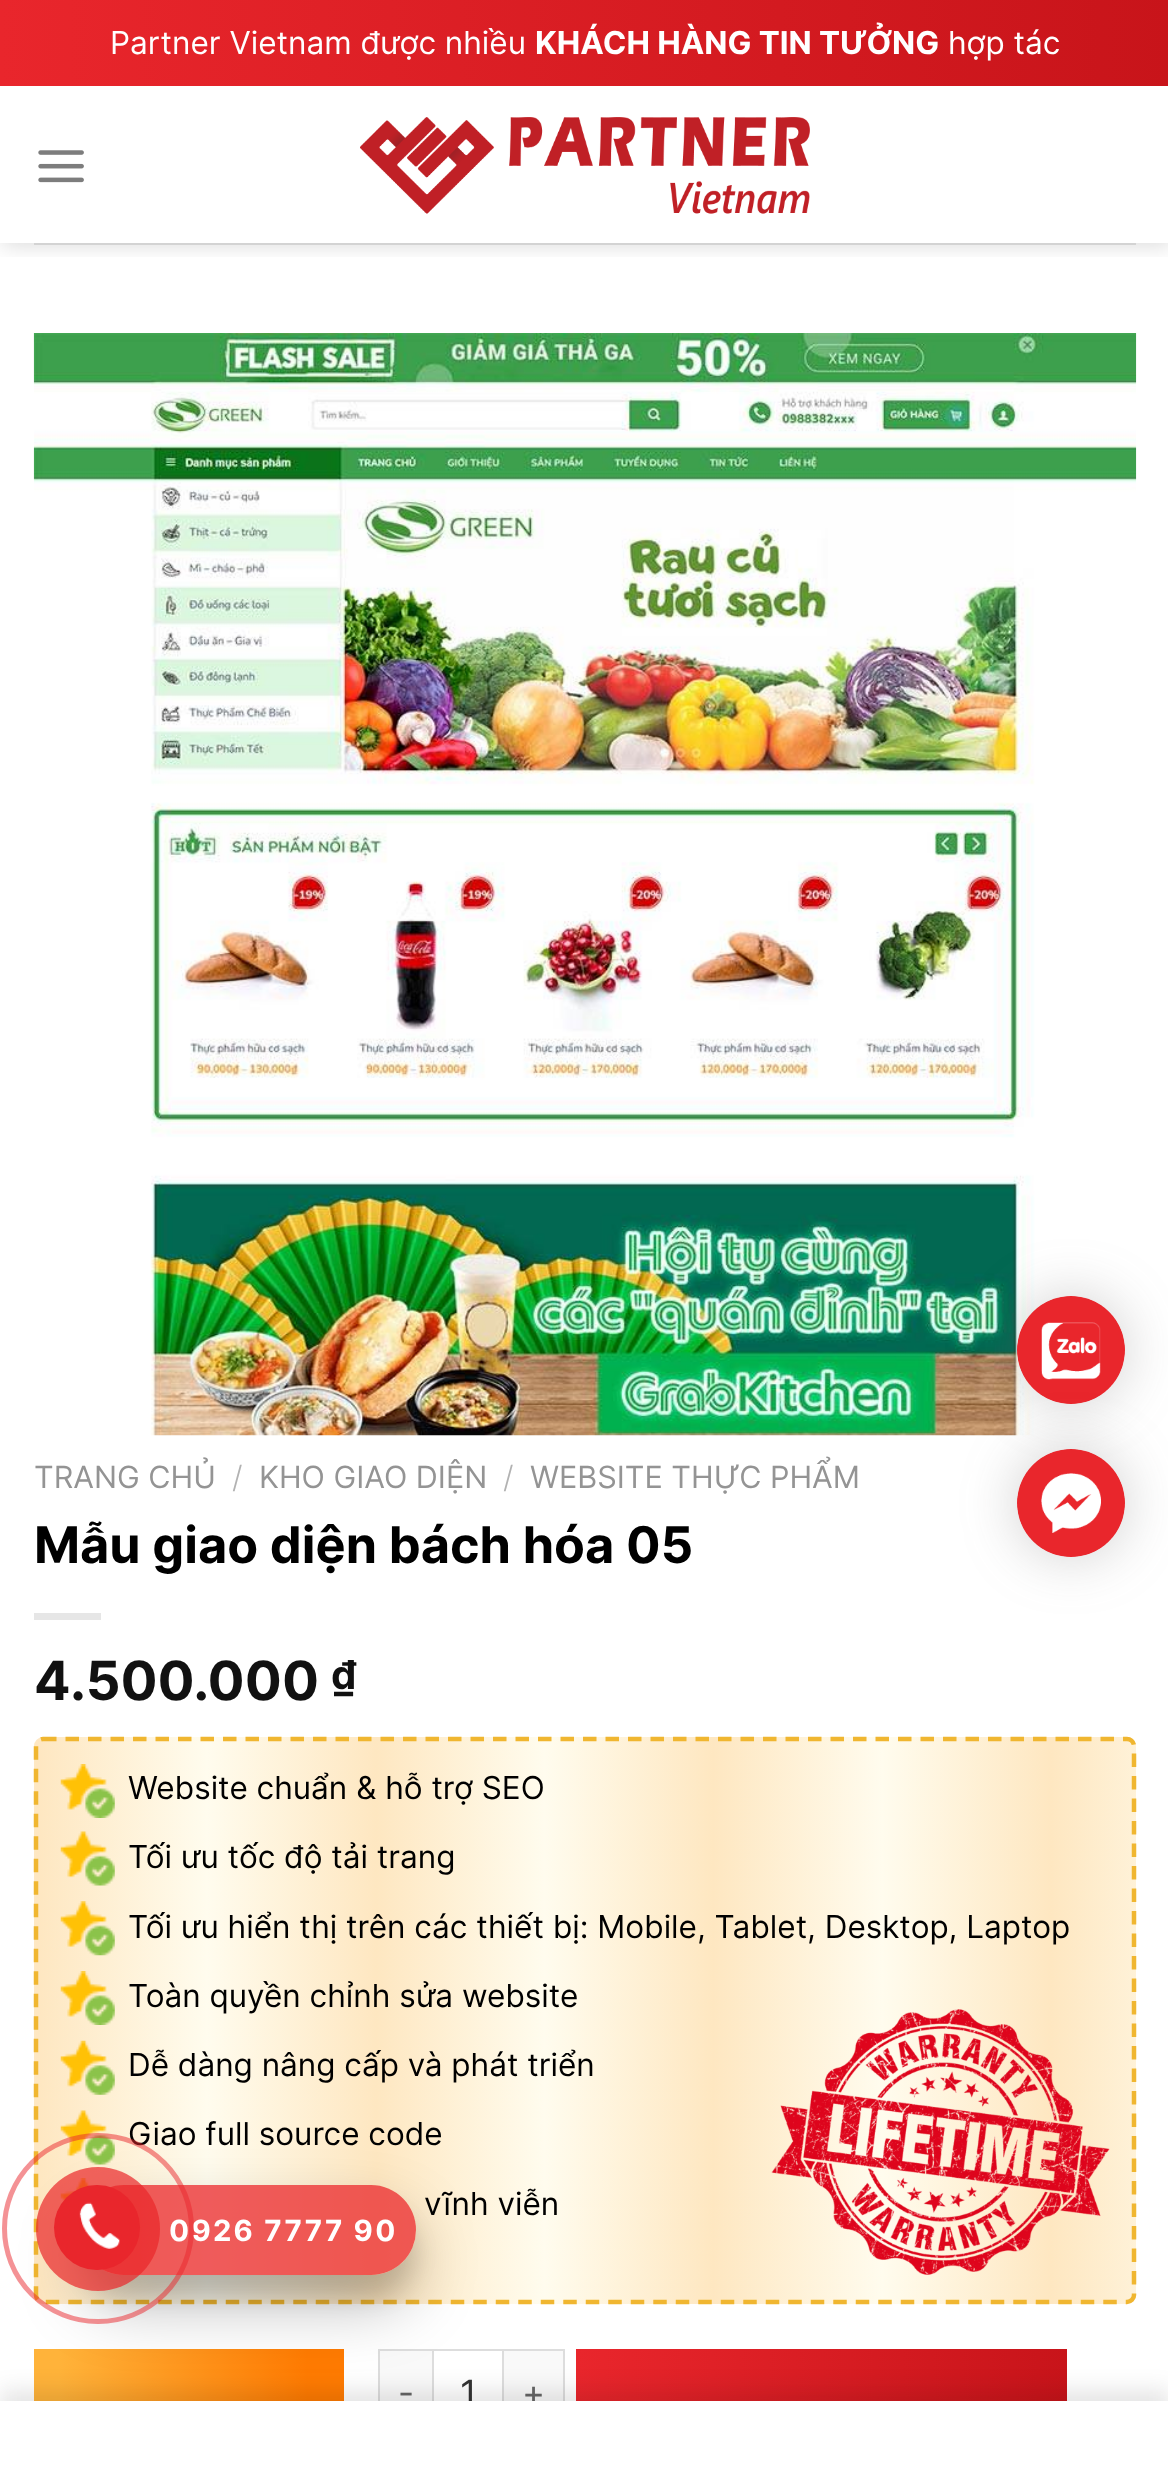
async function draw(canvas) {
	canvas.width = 1168;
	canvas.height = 2465;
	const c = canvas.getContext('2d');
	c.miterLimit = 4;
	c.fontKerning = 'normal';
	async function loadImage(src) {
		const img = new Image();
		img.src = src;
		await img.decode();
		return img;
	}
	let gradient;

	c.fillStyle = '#fff';
	c.fillRect(0, 0, 1168, 2465);
	c.save();
	c.beginPath();
	c.rect(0, 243, 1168, 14);
	c.clip();
	c.fillStyle = '#00000026';
	c.filter = 'blur(11px)';
	c.beginPath();
	c.rect(2, 2, 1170, 243);
	c.fill();
	c.filter = 'none';
	c.restore();
	gradient = c.createLinearGradient(0, 43, 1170, 43);
	gradient.addColorStop(0, '#e9262c');
	gradient.addColorStop(1, '#c8141a');
	c.fillStyle = gradient;
	c.fillRect(0, 0, 1168, 86);
	c.font = '31.5px Inter';
	c.fillStyle = '#fff';
	c.fillText('Partner Vietnam được nhiều', 110, 54);
	c.font = 'bold 31.5px Inter';
	c.fillText('KHÁCH HÀNG TIN TƯỞNG', 535, 54);
	c.font = '31.5px Inter';
	c.fillText('hợp tác', 948, 54);
	c.drawImage(await loadImage('img1.png'), 38, 150, 46, 33);
	c.drawImage(await loadImage('img2.png'), 360, 117, 450, 97);
	c.fillStyle = '#d3d3d3';
	c.fillRect(34, 243, 1102, 2);
	c.drawImage(await loadImage('img3.png'), 33, 333, 1104, 1103);
	c.font = '30.6px Inter';
	c.fillStyle = '#949494';
	c.fillText('TRANG CHỦ', 34, 1488);
	c.font = '300 30.6px Inter';
	c.fillStyle = '#b2b2b2';
	c.fillText('/', 232, 1488);
	c.font = '30.6px Inter';
	c.fillStyle = '#949494';
	c.fillText('KHO GIAO DIỆN', 259, 1488);
	c.font = '300 30.6px Inter';
	c.fillStyle = '#b2b2b2';
	c.fillText('/', 503, 1488);
	c.font = '30.6px Inter';
	c.fillStyle = '#949494';
	c.fillText('WEBSITE THỰC PHẨM', 530, 1488);
	c.font = 'bold 50.4px Inter';
	c.fillStyle = '#000';
	c.fillText('Mẫu giao diện bách hóa 05', 34, 1563);
	c.fillStyle = '#e6e6e6';
	c.fillRect(34, 1613, 67, 7);
	c.font = 'bold 54px Inter';
	c.fillStyle = '#111';
	c.fillText('4.500.000', 34, 1700);
	c.font = 'bold 40px Inter';
	c.fillText('₫', 331, 1689);
	c.save();
	c.beginPath();
	c.roundRect(34, 1737, 1102, 567, 9);
	c.clip();
	gradient = c.createLinearGradient(-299, 2021, 38, 2021);
	gradient.addColorStop(0, '#fee7c1');
	gradient.addColorStop(0.5, '#fffcee');
	gradient.addColorStop(1, '#fee7c1');
	c.fillStyle = gradient;
	c.fillRect(34, 1737, 4, 567);
	gradient = c.createLinearGradient(38, 2021, 376, 2021);
	gradient.addColorStop(0, '#fee7c1');
	gradient.addColorStop(0.5, '#fffcee');
	gradient.addColorStop(1, '#fee7c1');
	c.fillStyle = gradient;
	c.fillRect(38, 1737, 338, 567);
	c.restore();
	gradient = c.createLinearGradient(376, 2021, 713, 2021);
	gradient.addColorStop(0, '#fee7c1');
	gradient.addColorStop(0.5, '#fffcee');
	gradient.addColorStop(1, '#fee7c1');
	c.fillStyle = gradient;
	c.fillRect(376, 1737, 337, 567);
	gradient = c.createLinearGradient(713, 2021, 1051, 2021);
	gradient.addColorStop(0, '#fee7c1');
	gradient.addColorStop(0.5, '#fffcee');
	gradient.addColorStop(1, '#fee7c1');
	c.fillStyle = gradient;
	c.fillRect(713, 1737, 338, 567);
	gradient = c.createLinearGradient(1051, 2021, 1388, 2021);
	gradient.addColorStop(0, '#fee7c1');
	gradient.addColorStop(0.5, '#fffcee');
	gradient.addColorStop(1, '#fee7c1');
	c.fillStyle = gradient;
	c.beginPath();
	c.roundRect(1051, 1737, 85, 567, [0, 9, 9, 0]);
	c.fill();
	c.beginPath();
	c.moveTo(43, 1739);
	c.lineTo(1127, 1739);
	c.bezierCurveTo(1131, 1739, 1134, 1742.5, 1134, 1746);
	c.lineTo(1134, 2295);
	c.bezierCurveTo(1134, 2298.5, 1131, 2302, 1127, 2302);
	c.lineTo(43, 2302);
	c.bezierCurveTo(39, 2302, 36, 2298.5, 36, 2295);
	c.lineTo(36, 1746);
	c.bezierCurveTo(36, 1742.5, 39, 1739, 43, 1739);
	c.closePath();
	c.strokeStyle = '#f0b630';
	c.lineWidth = 4.5;
	c.setLineDash([13.5, 9]);
	c.stroke();
	c.drawImage(await loadImage('img4.png'), 60, 1764, 55, 54);
	c.font = '31.5px Inter';
	c.fillStyle = '#000';
	c.fillText('Website chuẩn & hỗ trợ SEO', 128, 1799);
	c.drawImage(await loadImage('img5.png'), 60, 1831, 55, 55);
	c.fillText('Tối ưu tốc độ tải trang', 128, 1868);
	c.drawImage(await loadImage('img6.png'), 60, 1901, 55, 55);
	c.fillText('Tối ưu hiển thị trên các thiết bị: Mobile, Tablet, Desktop, Laptop', 128, 1938);
	c.drawImage(await loadImage('img4.png'), 60, 1971, 55, 54);
	c.fillText('Toàn quyền chỉnh sửa website', 128, 2007);
	c.drawImage(await loadImage('img7.png'), 60, 2040, 55, 55);
	c.fillText('Dễ dàng nâng cấp và phát triển', 128, 2076);
	c.drawImage(await loadImage('img5.png'), 60, 2110, 55, 55);
	c.fillText('Giao full source code', 128, 2145);
	c.drawImage(await loadImage('img8.png'), 60, 2178, 31, 24);
	c.fillText('vĩnh viễn', 424, 2215);
	c.drawImage(await loadImage('img9.png'), 771, 2009, 339, 266);
	gradient = c.createLinearGradient(34, 2403, 344, 2403);
	gradient.addColorStop(0.08, '#ffb33a');
	gradient.addColorStop(0.88, '#ff7b02');
	c.fillStyle = gradient;
	c.fillRect(34, 2349, 310, 52);
	for (const [x, y, w, h, color] of [
		[380, 2351, 52, 50, '#f9f9f9'],
		[378, 2349, 54, 2, '#ddd'],
		[378, 2349, 2, 52, '#ddd'],
	]) {
		c.fillStyle = color;
		c.fillRect(x, y, w, h);
	}
	c.letterSpacing = '1px';
	c.font = '35px Inter';
	c.fillStyle = '#666';
	c.fillText('-', 398, 2405);
	c.strokeStyle = '#ddd';
	c.lineWidth = 2;
	c.setLineDash([]);
	c.strokeRect(433, 2350, 70, 88);
	c.letterSpacing = '0px';
	c.font = '36px Inter';
	c.fillStyle = '#333';
	c.fillText('1', 460, 2406);
	for (const [x, y, w, h, color] of [
		[504, 2351, 59, 50, '#f9f9f9'],
		[504, 2349, 61, 2, '#ddd'],
		[563, 2349, 2, 52, '#ddd'],
	]) {
		c.fillStyle = color;
		c.fillRect(x, y, w, h);
	}
	c.letterSpacing = '1px';
	c.font = '35px Inter';
	c.fillStyle = '#666';
	c.fillText('+', 522, 2405);
	gradient = c.createLinearGradient(576, 2403, 1067, 2403);
	gradient.addColorStop(0, '#e9262c');
	gradient.addColorStop(1, '#c8141a');
	c.fillStyle = gradient;
	c.fillRect(576, 2349, 491, 52);
	c.fillStyle = '#6461614d';
	c.filter = 'blur(28px)';
	c.beginPath();
	c.roundRect(1017, 1296, 108, 108, 54);
	c.fill();
	c.filter = 'none';
	c.drawImage(await loadImage('img10.png'), 1017, 1296, 108, 108);
	c.filter = 'blur(28px)';
	c.beginPath();
	c.roundRect(1017, 1449, 108, 108, 54);
	c.fill();
	c.filter = 'none';
	c.drawImage(await loadImage('img11.png'), 1017, 1449, 108, 108);
	c.save();
	c.beginPath();
	c.moveTo(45, 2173);
	c.lineTo(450, 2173);
	c.lineTo(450, 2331);
	c.lineTo(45, 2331);
	c.closePath();
	c.moveTo(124, 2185);
	c.lineTo(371, 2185);
	c.bezierCurveTo(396, 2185, 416, 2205, 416, 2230);
	c.bezierCurveTo(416, 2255, 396, 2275, 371, 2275);
	c.lineTo(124, 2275);
	c.bezierCurveTo(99, 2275, 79, 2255, 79, 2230);
	c.bezierCurveTo(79, 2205, 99, 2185, 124, 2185);
	c.closePath();
	c.clip('evenodd');
	c.fillStyle = '#0000001a';
	c.filter = 'blur(11px)';
	c.beginPath();
	c.roundRect(79, 2207, 337, 90, 45);
	c.fill();
	c.filter = 'none';
	c.restore();
	c.fillStyle = '#0000001a';
	c.filter = 'blur(11px)';
	c.beginPath();
	c.rect(0, 2390, 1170, 65);
	c.fill();
	c.filter = 'none';
	c.fillStyle = '#fff';
	c.fillRect(0, 2401, 1168, 64);
	c.save();
	c.beginPath();
	c.moveTo(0, 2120);
	c.lineTo(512, 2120);
	c.lineTo(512, 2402);
	c.lineTo(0, 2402);
	c.closePath();
	c.moveTo(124, 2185);
	c.lineTo(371, 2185);
	c.bezierCurveTo(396, 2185, 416, 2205, 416, 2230);
	c.bezierCurveTo(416, 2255, 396, 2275, 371, 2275);
	c.lineTo(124, 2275);
	c.bezierCurveTo(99, 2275, 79, 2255, 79, 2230);
	c.bezierCurveTo(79, 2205, 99, 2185, 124, 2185);
	c.closePath();
	c.clip('evenodd');
	c.fillStyle = '#00000040';
	c.filter = 'blur(31.5px)';
	c.beginPath();
	c.roundRect(79, 2216, 337, 90, 45);
	c.fill();
	c.filter = 'none';
	c.restore();
	c.fillStyle = '#e92629bf';
	c.beginPath();
	c.roundRect(79, 2185, 337, 90, 45);
	c.fill();
	c.letterSpacing = '2.25px';
	c.font = 'bold 29.25px Inter';
	c.fillStyle = '#fff';
	c.fillText('0926 7777 90', 169, 2241);
	c.beginPath();
	c.roundRect(4.5, 2135.5, 187, 186, 93);
	c.strokeStyle = '#e9262c80';
	c.lineWidth = 5;
	c.stroke();
	c.fillStyle = '#e92629b3';
	c.beginPath();
	c.arc(98, 2229, 62, 0, 2 * Math.PI);
	c.fill();
	c.fillStyle = '#e9262c';
	c.beginPath();
	c.roundRect(54, 2185, 86, 85, 42.5);
	c.fill();
	c.drawImage(await loadImage('img12.png'), 79, 2202, 41, 47);
}

draw(document.querySelector('canvas'));
